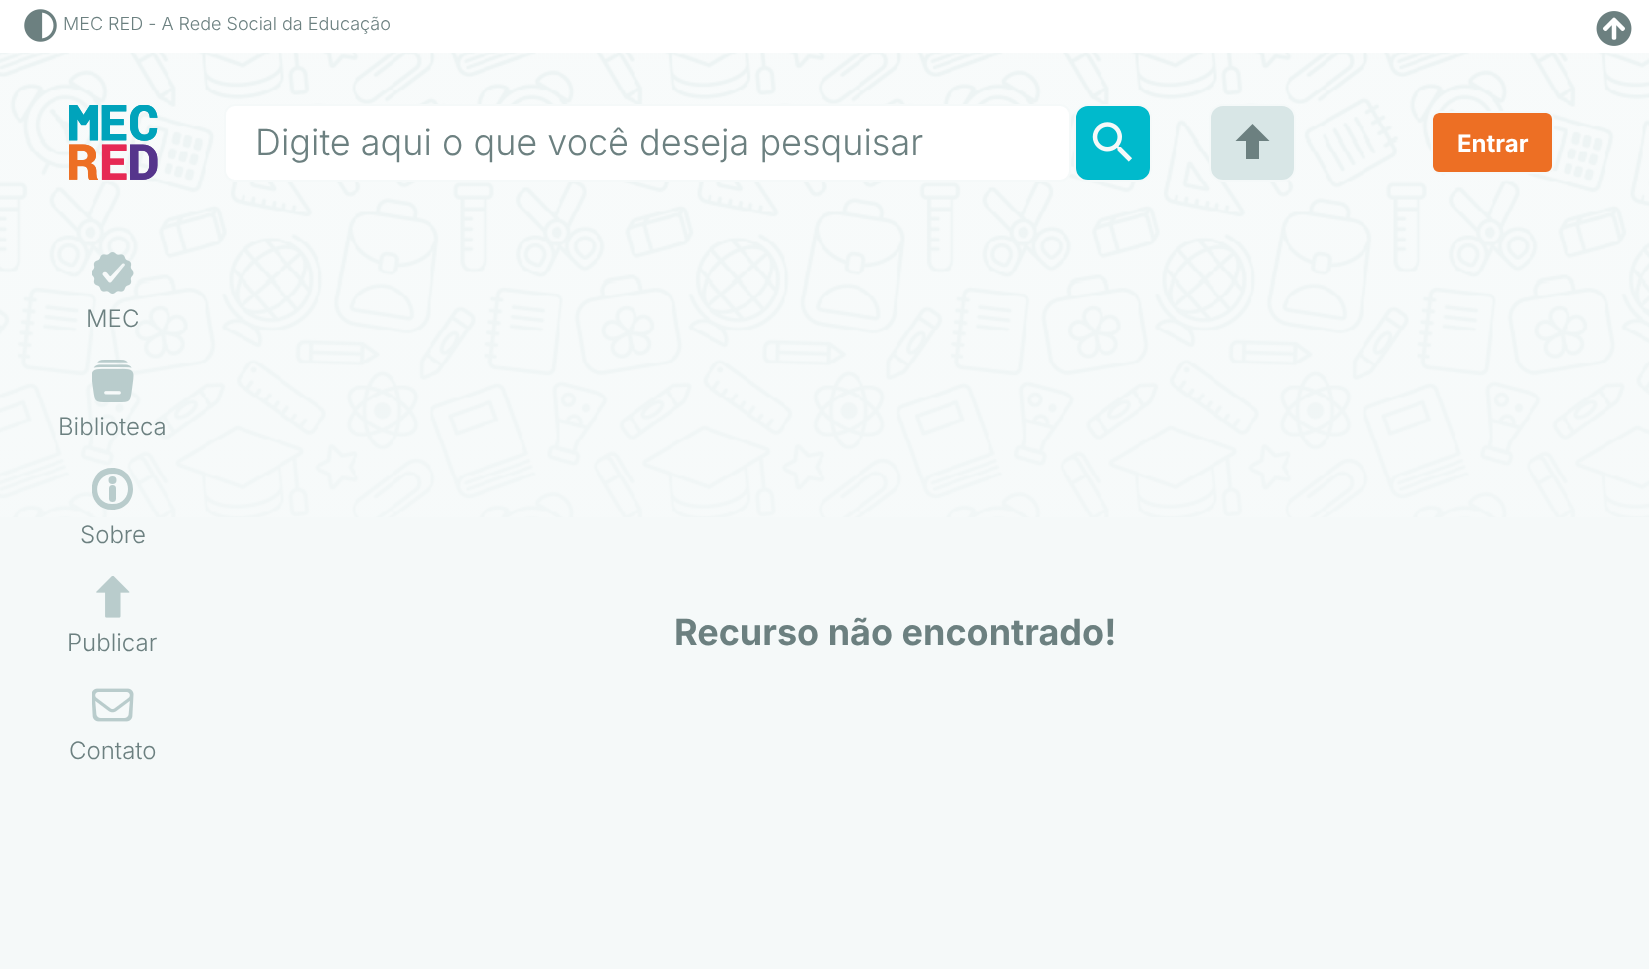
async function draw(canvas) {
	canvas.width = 1649;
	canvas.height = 969;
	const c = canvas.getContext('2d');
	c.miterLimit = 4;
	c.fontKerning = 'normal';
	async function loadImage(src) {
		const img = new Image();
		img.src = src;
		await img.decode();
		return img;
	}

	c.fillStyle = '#f5f9f9';
	c.fillRect(0, 0, 1649, 969);
	c.drawImage(await loadImage('img1.png'), 0, 59, 1649, 458);
	c.fillStyle = '#fff';
	c.fillRect(0, 0, 1649, 53);
	c.drawImage(await loadImage('img2.png'), 24, 9, 33, 33);
	c.font = '300 18px Inter';
	c.fillStyle = '#6c8080';
	c.fillText('MEC RED - A Rede Social da Educação', 63, 30);
	c.drawImage(await loadImage('img3.png'), 1596, 11, 36, 35);
	c.drawImage(await loadImage('img4.png'), 0, 53, 1649, 6);
	c.drawImage(await loadImage('img5.png'), 69, 105, 89, 75);
	c.drawImage(await loadImage('img6.png'), 69, 105, 89, 75);
	c.fillStyle = '#fff';
	c.beginPath();
	c.roundRect(225, 105, 845, 75, 9);
	c.fill();
	c.beginPath();
	c.roundRect(225, 105, 845, 76, 10);
	c.strokeStyle = '#f5f9f9';
	c.lineWidth = 2;
	c.stroke();
	c.font = '300 36px Inter';
	c.fillStyle = '#6c8080';
	c.fillText('Digite aqui o que você deseja pesquisar', 255, 155);
	c.fillStyle = '#00bacc';
	c.beginPath();
	c.roundRect(1075, 105, 76, 76, 13);
	c.fill();
	c.stroke();
	c.drawImage(await loadImage('img7.png'), 1092, 122, 40, 40);
	c.fillStyle = '#d8e6e6';
	c.beginPath();
	c.roundRect(1210, 105, 85, 76, 13);
	c.fill();
	c.stroke();
	c.fillStyle = '#6c8080';
	c.beginPath();
	c.moveTo(1252.5, 124);
	c.lineTo(1235.5, 141);
	c.lineTo(1246, 141);
	c.lineTo(1246, 159);
	c.lineTo(1259, 159);
	c.lineTo(1259, 141);
	c.lineTo(1269.5, 141);
	c.closePath();
	c.fill();
	c.fillStyle = '#ed6f24';
	c.beginPath();
	c.roundRect(1433, 113, 120, 60, 6);
	c.fill();
	c.beginPath();
	c.roundRect(1432, 112, 121, 61, 7);
	c.stroke();
	c.font = 'bold 24px Inter';
	c.fillStyle = '#fff';
	c.fillText('Entrar', 1457, 152);
	c.drawImage(await loadImage('img8.png'), 92, 252, 42, 42);
	c.font = '300 24px Inter';
	c.fillStyle = '#6c8080';
	c.fillText('MEC', 86, 327);
	c.drawImage(await loadImage('img9.png'), 92, 360, 42, 42);
	c.fillText('Biblioteca', 58, 435);
	c.save();
	c.beginPath();
	c.rect(92, 468, 42, 42);
	c.clip();
	c.fillStyle = '#b9cccc';
	c.beginPath();
	c.moveTo(112, 468);
	c.bezierCurveTo(85, 468, 85, 510, 112, 510);
	c.bezierCurveTo(140, 510, 140, 468, 112, 468);
	c.moveTo(112, 504);
	c.bezierCurveTo(92, 504, 92, 474, 113, 474);
	c.bezierCurveTo(133, 474, 133, 504, 113, 504);
	c.closePath();
	c.fill();
	c.restore();
	c.fillStyle = '#b9cccc';
	c.beginPath();
	c.arc(112.5, 480, 4, 0, 2 * Math.PI);
	c.fill();
	c.beginPath();
	c.roundRect(109, 485, 7, 17, 3.5);
	c.fill();
	c.fillStyle = '#6c8080';
	c.fillText('Sobre', 80, 543);
	c.drawImage(await loadImage('img10.png'), 96, 576, 34, 42);
	c.fillText('Publicar', 67, 651);
	c.drawImage(await loadImage('img11.png'), 92, 688, 42, 34);
	c.fillText('Contato', 69, 759);
	c.font = 'bold 36px Inter';
	c.fillText('Recurso não encontrado!', 674, 645);
}

draw(document.querySelector('canvas'));
